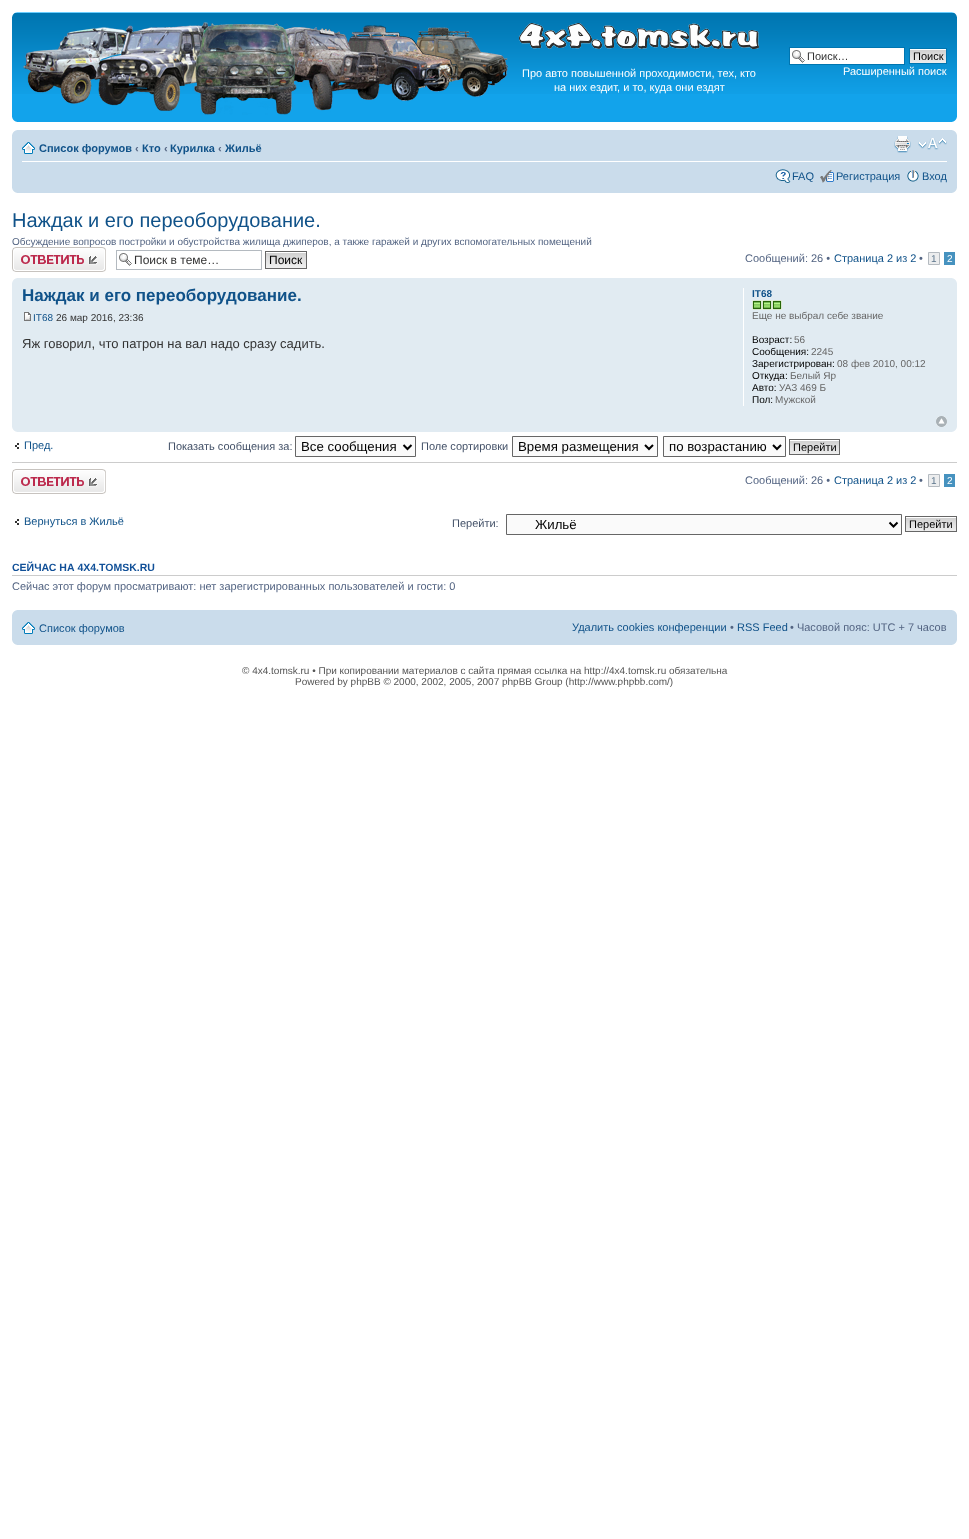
async function draw(canvas) {
	canvas.width = 969;
	canvas.height = 1539;
	const c = canvas.getContext('2d');
	c.miterLimit = 4;
	c.fontKerning = 'normal';
	async function loadImage(src) {
		const img = new Image();
		img.src = src;
		await img.decode();
		return img;
	}

	c.fillStyle = '#fff';
	c.fillRect(0, 0, 969, 1539);
	c.fillStyle = '#12a3eb';
	c.fillRect(12, 94, 945, 28);
	c.drawImage(await loadImage('img1.png'), 12, 12, 945, 82);
	c.drawImage(await loadImage('img2.png'), 12, 12, 5, 5);
	c.drawImage(await loadImage('img3.png'), 952, 12, 5, 5);
	c.fillStyle = '#fff';
	c.fillRect(790, 48, 114, 16);
	c.drawImage(await loadImage('img4.png'), 792, 50, 13, 13);
	c.strokeStyle = '#0075b0';
	c.strokeRect(789.5, 47.5, 115, 17);
	c.font = '11px Liberation Sans';
	c.fillStyle = '#333';
	c.fillText('Поиск…', 807, 60);
	c.drawImage(await loadImage('img5.png'), 910, 49, 36, 14);
	c.strokeRect(909.5, 48.5, 37, 15);
	c.fillStyle = '#000';
	c.fillText('Поиск', 913, 60);
	c.fillStyle = '#fff';
	c.fillText('Расширенный поиск', 843, 75);
	c.drawImage(await loadImage('img6.png'), 23, 22, 485, 93);
	c.drawImage(await loadImage('img7.png'), 519, 23, 240, 26);
	c.fillText('Про авто повышенной проходимости, тех, кто', 522, 77);
	c.fillText('на них ездит, и то, куда они ездят', 554, 91);
	c.drawImage(await loadImage('img8.png'), 12, 117, 5, 5);
	c.drawImage(await loadImage('img9.png'), 952, 117, 5, 5);
	c.fillStyle = '#cadceb';
	c.fillRect(12, 130, 945, 63);
	c.drawImage(await loadImage('img10.png'), 12, 130, 5, 5);
	c.drawImage(await loadImage('img11.png'), 952, 130, 5, 5);
	c.fillStyle = '#fff';
	c.fillRect(22, 161, 925, 1);
	c.drawImage(await loadImage('img12.png'), 22, 142, 13, 12);
	c.font = 'bold 11px Liberation Sans';
	c.fillStyle = '#105289';
	c.fillText('Список форумов', 39, 152);
	c.fillStyle = '#536482';
	c.fillText('‹', 135, 152);
	c.fillStyle = '#105289';
	c.fillText('Кто', 142, 152);
	c.fillStyle = '#536482';
	c.fillText('‹', 164, 152);
	c.fillStyle = '#105289';
	c.fillText('Курилка', 170, 152);
	c.fillStyle = '#536482';
	c.fillText('‹', 218, 152);
	c.fillStyle = '#105289';
	c.fillText('Жильё', 225, 152);
	c.drawImage(await loadImage('img13.png'), 894, 136, 17, 17);
	c.drawImage(await loadImage('img14.png'), 918, 138, 29, 12);
	c.drawImage(await loadImage('img15.png'), 775, 169, 16, 14);
	c.font = '11px Liberation Sans';
	c.fillText('FAQ', 792, 180);
	c.drawImage(await loadImage('img16.png'), 820, 170, 14, 13);
	c.fillText('Регистрация', 836, 180);
	c.drawImage(await loadImage('img17.png'), 907, 170, 12, 12);
	c.fillText('Вход', 922, 180);
	c.drawImage(await loadImage('img18.png'), 12, 188, 5, 5);
	c.drawImage(await loadImage('img19.png'), 952, 188, 5, 5);
	c.font = '20px Liberation Sans';
	c.fillText('Наждак и его переоборудование.', 12, 227);
	c.font = '10px Liberation Sans';
	c.fillStyle = '#536482';
	c.fillText('Обсуждение вопросов постройки и обустройства жилища джиперов, а также гаражей и других вспомогательных помещений', 12, 245);
	c.drawImage(await loadImage('img20.png'), 12, 247, 94, 25);
	c.drawImage(await loadImage('img4.png'), 119, 253, 13, 13);
	c.strokeStyle = '#b4bac0';
	c.strokeRect(116.5, 250.5, 145, 19);
	c.font = '12px Liberation Sans';
	c.fillStyle = '#333';
	c.fillText('Поиск в теме…', 134, 264);
	c.drawImage(await loadImage('img21.png'), 266, 252, 40, 16);
	c.strokeStyle = '#666';
	c.strokeRect(265.5, 251.5, 41, 17);
	c.fillStyle = '#000';
	c.fillText('Поиск', 269, 264);
	c.font = '11px Liberation Sans';
	c.fillStyle = '#536482';
	c.fillText('Сообщений: 26 •', 745, 262);
	c.fillStyle = '#105289';
	c.fillText('Страница 2 из 2', 834, 262);
	c.fillStyle = '#536482';
	c.fillText('•', 919, 262);
	c.fillStyle = '#ecedee';
	c.beginPath();
	c.rect(928.5, 252.5, 11, 12);
	c.fill();
	c.strokeStyle = '#b4bac0';
	c.stroke();
	c.font = '10px Liberation Sans';
	c.fillStyle = '#5c758c';
	c.fillText('1', 931, 262);
	c.fillStyle = '#4692bf';
	c.fillRect(944, 252, 11, 13);
	c.fillStyle = '#fff';
	c.fillText('2', 947, 262);
	c.fillStyle = '#e1ebf2';
	c.fillRect(12, 278, 945, 154);
	c.drawImage(await loadImage('img22.png'), 12, 278, 5, 5);
	c.drawImage(await loadImage('img23.png'), 952, 278, 5, 5);
	c.font = 'bold 17px Liberation Sans';
	c.fillStyle = '#105289';
	c.fillText('Наждак и его переоборудование.', 22, 301);
	c.drawImage(await loadImage('img24.png'), 24, 312, 7, 9);
	c.font = '10px Liberation Sans';
	c.fillText('IT68', 33, 321);
	c.fillStyle = '#333';
	c.fillText('26 мар 2016, 23:36', 56, 321);
	c.font = '13px Liberation Sans';
	c.fillText('Яж говорил, что патрон на вал надо сразу садить.', 22, 348);
	c.fillStyle = '#fff';
	c.fillRect(743, 288, 1, 118);
	c.font = 'bold 10px Liberation Sans';
	c.fillStyle = '#105289';
	c.fillText('IT68', 752, 297);
	c.drawImage(await loadImage('img25.png'), 752, 300, 10, 10);
	c.drawImage(await loadImage('img25.png'), 762, 300, 10, 10);
	c.drawImage(await loadImage('img25.png'), 772, 300, 10, 10);
	c.font = '10px Liberation Sans';
	c.fillStyle = '#666';
	c.fillText('Еще не выбрал себе звание', 752, 319);
	c.fillStyle = '#000';
	c.fillText('Возраст:', 752, 343);
	c.fillStyle = '#666';
	c.fillText('56', 794, 343);
	c.fillStyle = '#000';
	c.fillText('Сообщения:', 752, 355);
	c.fillStyle = '#666';
	c.fillText('2245', 811, 355);
	c.fillStyle = '#000';
	c.fillText('Зарегистрирован:', 752, 367);
	c.fillStyle = '#666';
	c.fillText('08 фев 2010, 00:12', 837, 367);
	c.fillStyle = '#000';
	c.fillText('Откуда:', 752, 379);
	c.fillStyle = '#666';
	c.fillText('Белый Яр', 790, 379);
	c.fillStyle = '#000';
	c.fillText('Авто:', 752, 391);
	c.fillStyle = '#666';
	c.fillText('УАЗ 469 Б', 779, 391);
	c.fillStyle = '#000';
	c.fillText('Пол:', 752, 403);
	c.fillStyle = '#666';
	c.fillText('Мужской', 775, 403);
	c.drawImage(await loadImage('img26.png'), 936, 416, 11, 11);
	c.drawImage(await loadImage('img27.png'), 12, 427, 5, 5);
	c.drawImage(await loadImage('img28.png'), 952, 427, 5, 5);
	c.drawImage(await loadImage('img29.png'), 15, 443, 4, 6);
	c.font = '11px Liberation Sans';
	c.fillStyle = '#105289';
	c.fillText('Пред.', 24, 449);
	c.fillStyle = '#425067';
	c.fillText('Показать сообщения за:', 168, 450);
	c.fillStyle = '#fafafa';
	c.beginPath();
	c.rect(295.5, 436.5, 120, 20);
	c.fill();
	c.strokeStyle = '#666';
	c.stroke();
	c.beginPath();
	c.moveTo(403.5, 445);
	c.lineTo(407.5, 449);
	c.lineTo(411.5, 445);
	c.strokeStyle = '#000';
	c.lineWidth = 2;
	c.stroke();
	c.font = '13.25px Liberation Sans';
	c.fillStyle = '#000';
	c.fillText('Все сообщения', 301, 451);
	c.font = '11px Liberation Sans';
	c.fillStyle = '#425067';
	c.fillText('Поле сортировки', 421, 450);
	c.fillStyle = '#fafafa';
	c.beginPath();
	c.rect(512.5, 436.5, 145, 20);
	c.fill();
	c.strokeStyle = '#666';
	c.lineWidth = 1;
	c.stroke();
	c.beginPath();
	c.moveTo(645, 445);
	c.lineTo(649, 449);
	c.lineTo(653, 445);
	c.strokeStyle = '#000';
	c.lineWidth = 2;
	c.stroke();
	c.font = '13.25px Liberation Sans';
	c.fillStyle = '#000';
	c.fillText('Время размещения', 518, 451);
	c.fillStyle = '#fafafa';
	c.beginPath();
	c.rect(663.5, 436.5, 122, 20);
	c.fill();
	c.strokeStyle = '#666';
	c.lineWidth = 1;
	c.stroke();
	c.beginPath();
	c.moveTo(773, 445);
	c.lineTo(777, 449);
	c.lineTo(781, 445);
	c.strokeStyle = '#000';
	c.lineWidth = 2;
	c.stroke();
	c.fillStyle = '#000';
	c.fillText('по возрастанию', 669, 451);
	c.drawImage(await loadImage('img30.png'), 790, 440, 49, 14);
	c.strokeStyle = '#666';
	c.lineWidth = 1;
	c.strokeRect(789.5, 439.5, 50, 15);
	c.font = '11px Liberation Sans';
	c.fillText('Перейти', 793, 451);
	c.fillStyle = '#ccc';
	c.fillRect(12, 462, 945, 1);
	c.drawImage(await loadImage('img20.png'), 12, 469, 94, 25);
	c.fillStyle = '#536482';
	c.fillText('Сообщений: 26 •', 745, 484);
	c.fillStyle = '#105289';
	c.fillText('Страница 2 из 2', 834, 484);
	c.fillStyle = '#536482';
	c.fillText('•', 919, 484);
	c.fillStyle = '#ecedee';
	c.beginPath();
	c.rect(928.5, 474.5, 11, 12);
	c.fill();
	c.strokeStyle = '#b4bac0';
	c.stroke();
	c.font = '10px Liberation Sans';
	c.fillStyle = '#5c758c';
	c.fillText('1', 931, 484);
	c.fillStyle = '#4692bf';
	c.fillRect(944, 474, 11, 13);
	c.fillStyle = '#fff';
	c.fillText('2', 947, 484);
	c.drawImage(await loadImage('img29.png'), 15, 519, 4, 6);
	c.font = '11px Liberation Sans';
	c.fillStyle = '#105289';
	c.fillText('Вернуться в Жильё', 24, 525);
	c.fillStyle = '#425067';
	c.fillText('Перейти:', 452, 527);
	c.fillStyle = '#fafafa';
	c.beginPath();
	c.rect(506.5, 514.5, 395, 20);
	c.fill();
	c.strokeStyle = '#666';
	c.stroke();
	c.beginPath();
	c.moveTo(889.5, 522.5);
	c.lineTo(893.5, 526.5);
	c.lineTo(897.5, 522.5);
	c.strokeStyle = '#000';
	c.lineWidth = 2;
	c.stroke();
	c.font = '13.25px Liberation Sans';
	c.fillStyle = '#000';
	c.fillText('Жильё', 535, 529);
	c.drawImage(await loadImage('img31.png'), 906, 517, 50, 14);
	c.strokeStyle = '#666';
	c.lineWidth = 1;
	c.strokeRect(905.5, 516.5, 51, 15);
	c.font = '11px Liberation Sans';
	c.fillText('Перейти', 909, 528);
	c.fillStyle = '#ccc';
	c.fillRect(12, 575, 945, 1);
	c.font = 'bold 10.5px Liberation Sans';
	c.fillStyle = '#115098';
	c.fillText('СЕЙЧАС НА 4X4.TOMSK.RU', 12, 571);
	c.font = '11px Liberation Sans';
	c.fillStyle = '#536482';
	c.fillText('Сейчас этот форум просматривают: нет зарегистрированных пользователей и гости: 0', 12, 590);
	c.fillStyle = '#cadceb';
	c.fillRect(12, 610, 945, 35);
	c.drawImage(await loadImage('img10.png'), 12, 610, 5, 5);
	c.drawImage(await loadImage('img11.png'), 952, 610, 5, 5);
	c.drawImage(await loadImage('img12.png'), 22, 622, 13, 12);
	c.fillStyle = '#105289';
	c.fillText('Список форумов', 39, 632);
	c.fillText('Удалить cookies конференции', 572, 631);
	c.fillStyle = '#536482';
	c.fillText('•', 730, 631);
	c.fillStyle = '#105289';
	c.fillText('RSS Feed', 737, 631);
	c.fillStyle = '#536482';
	c.fillText('• Часовой пояс: UTC + 7 часов', 790, 631);
	c.drawImage(await loadImage('img18.png'), 12, 640, 5, 5);
	c.drawImage(await loadImage('img19.png'), 952, 640, 5, 5);
	c.font = '10px Liberation Sans';
	c.fillStyle = '#555';
	c.fillText('© 4x4.tomsk.ru • При копировании материалов с сайта прямая ссылка на http://4x4.tomsk.ru обязательна', 242, 674);
	c.fillText('Powered by phpBB © 2000, 2002, 2005, 2007 phpBB Group (http://www.phpbb.com/)', 295, 685);
}

draw(document.querySelector('canvas'));
